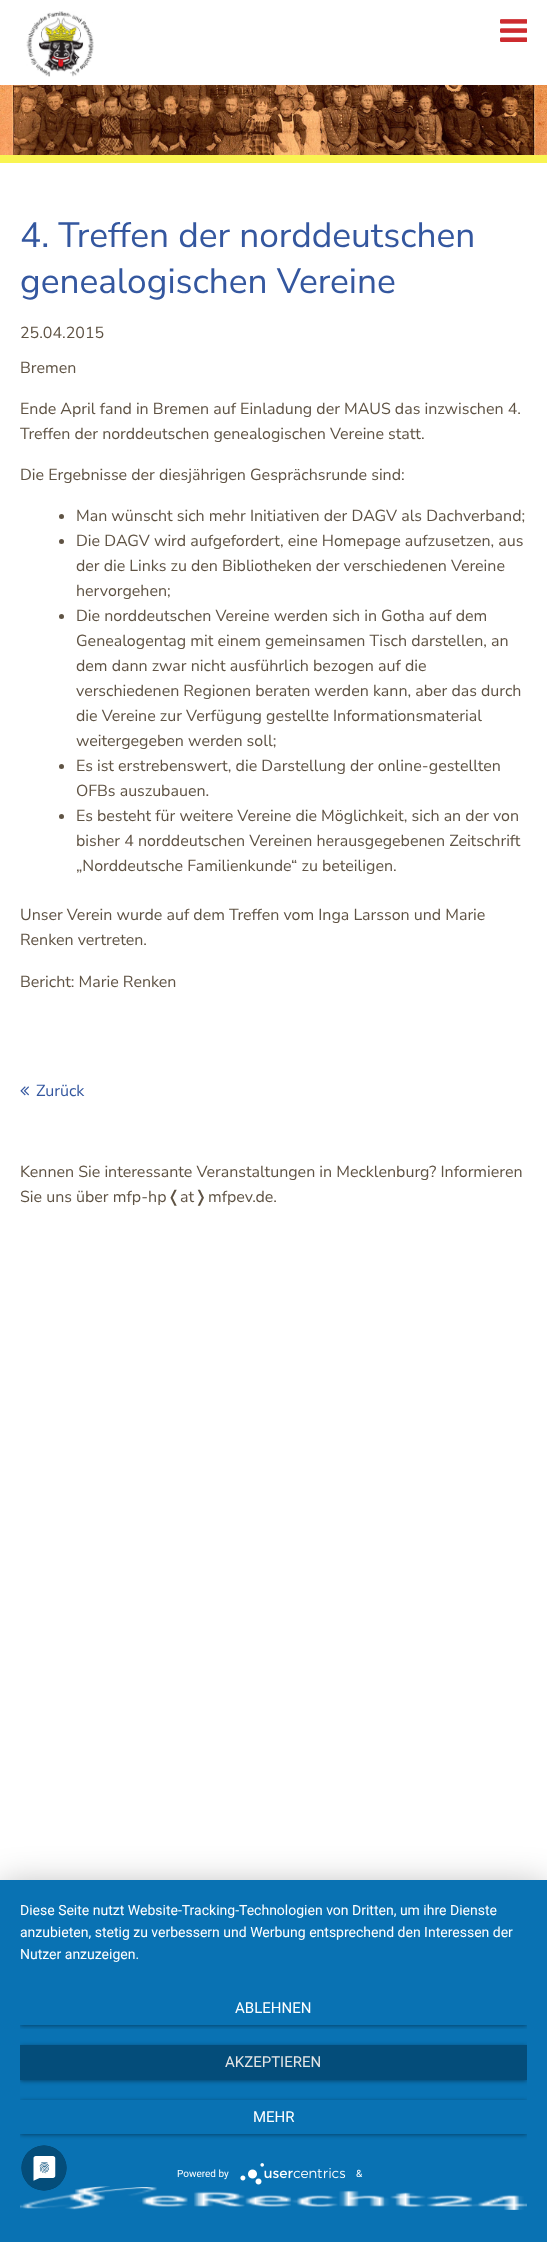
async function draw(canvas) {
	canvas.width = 547;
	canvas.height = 2242;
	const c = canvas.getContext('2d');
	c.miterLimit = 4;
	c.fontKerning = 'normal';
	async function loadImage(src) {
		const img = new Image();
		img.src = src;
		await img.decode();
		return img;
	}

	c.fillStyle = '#fff';
	c.fillRect(0, 0, 547, 2242);
	c.drawImage(await loadImage('img1.png'), 26, 11, 68, 66);
	c.drawImage(await loadImage('img2.png'), 500, 19, 27, 23);
	c.fillStyle = '#f9f451';
	c.fillRect(0, 155, 547, 8);
	c.drawImage(await loadImage('img3.png'), 0, 85, 547, 70);
	c.font = '35.25px Nunito Sans';
	c.fillStyle = '#34579f';
	c.fillText('4. Treffen der norddeutschen', 20, 247);
	c.fillText('genealogischen Vereine', 20, 293);
	c.font = '16px Nunito Sans';
	c.fillStyle = '#5f5344';
	for (const [text, x, y] of [
		['25.04.2015', 20, 338],
		['Bremen', 20, 373],
		['Ende April fand in Bremen auf Einladung der MAUS das inzwischen 4.', 20, 414],
		['Treffen der norddeutschen genealogischen Vereine statt.', 20, 439],
		['Die Ergebnisse der diesjährigen Gesprächsrunde sind:', 20, 480],
	]) {
		c.fillText(text, x, y);
	}
	c.beginPath();
	c.arc(61.5, 516.5, 2.5, 0, 2 * Math.PI);
	c.fill();
	c.fillText('Man wünscht sich mehr Initiativen der DAGV als Dachverband;', 76, 521);
	c.beginPath();
	c.arc(61.5, 541.5, 2.5, 0, 2 * Math.PI);
	c.fill();
	for (const [text, x, y] of [
		['Die DAGV wird aufgefordert, eine Homepage aufzusetzen, aus', 76, 546],
		['der die Links zu den Bibliotheken der verschiedenen Vereine', 76, 571],
		['hervorgehen;', 76, 596],
	]) {
		c.fillText(text, x, y);
	}
	c.beginPath();
	c.arc(61.5, 616.5, 2.5, 0, 2 * Math.PI);
	c.fill();
	for (const [text, x, y] of [
		['Die norddeutschen Vereine werden sich in Gotha auf dem', 76, 621],
		['Genealogentag mit einem gemeinsamen Tisch darstellen, an', 76, 646],
		['dem dann zwar nicht ausführlich bezogen auf die', 76, 671],
		['verschiedenen Regionen beraten werden kann, aber das durch', 76, 696],
		['die Vereine zur Verfügung gestellte Informationsmaterial', 76, 721],
		['weitergegeben werden soll;', 76, 746],
	]) {
		c.fillText(text, x, y);
	}
	c.beginPath();
	c.arc(61.5, 766.5, 2.5, 0, 2 * Math.PI);
	c.fill();
	c.fillText('Es ist erstrebenswert, die Darstellung der online-gestellten', 76, 771);
	c.fillText('OFBs auszubauen.', 76, 796);
	c.beginPath();
	c.arc(61.5, 816.5, 2.5, 0, 2 * Math.PI);
	c.fill();
	for (const [text, x, y] of [
		['Es besteht für weitere Vereine die Möglichkeit, sich an der von', 76, 821],
		['bisher 4 norddeutschen Vereinen herausgegebenen Zeitschrift', 76, 846],
		['„Norddeutsche Familienkunde“ zu beteiligen.', 76, 871],
		['Unser Verein wurde auf dem Treffen vom Inga Larsson und Marie', 20, 920],
		['Renken vertreten.', 20, 945],
		['Bericht: Marie Renken', 20, 987],
	]) {
		c.fillText(text, x, y);
	}
	c.drawImage(await loadImage('img4.png'), 20, 1086, 9, 10);
	c.fillStyle = '#34579f';
	c.fillText('Zurück', 36, 1096);
	c.fillStyle = '#5f5344';
	c.fillText('Kennen Sie interessante Veranstaltungen in Mecklenburg? Informieren', 20, 1177);
	c.fillText('Sie uns über mfp-hp', 20, 1202);
	c.font = '16px DejaVu Sans';
	c.fillText('❬', 167, 1202);
	c.font = '16px Nunito Sans';
	c.fillText('at', 180, 1202);
	c.font = '16px DejaVu Sans';
	c.fillText('❭', 194, 1202);
	c.font = '16px Nunito Sans';
	c.fillText('mfpev.de.', 208, 1202);
	c.fillStyle = '#0000004d';
	c.filter = 'blur(18px)';
	c.beginPath();
	c.rect(0, 1886, 547, 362);
	c.fill();
	c.filter = 'none';
	c.fillStyle = '#0972b3';
	c.fillRect(0, 1880, 547, 362);
	c.font = '14px Roboto';
	c.fillStyle = '#fff';
	for (const [text, x, y] of [
		['Diese Seite nutzt Website-Tracking-Technologien von Dritten, um ihre Dienste', 20, 1915],
		['anzubieten, stetig zu verbessern und Werbung entsprechend den Interessen der', 20, 1937],
		['Nutzer anzuzeigen.', 20, 1959],
	]) {
		c.fillText(text, x, y);
	}
	c.save();
	c.beginPath();
	c.rect(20, 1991, 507, 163);
	c.clip();
	c.beginPath();
	c.rect(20, 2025, 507, 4);
	c.clip();
	c.fillStyle = '#00000066';
	c.filter = 'blur(2px)';
	c.beginPath();
	c.rect(20, 1992, 507, 34);
	c.fill();
	c.filter = 'none';
	c.restore();
	c.font = '15px Roboto';
	c.fillText('ABLEHNEN', 235, 2013);
	c.save();
	c.beginPath();
	c.rect(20, 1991, 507, 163);
	c.clip();
	c.fillStyle = '#00000066';
	c.filter = 'blur(2px)';
	c.beginPath();
	c.rect(20, 2046, 507, 35);
	c.fill();
	c.filter = 'none';
	c.restore();
	c.fillStyle = '#044d7a';
	c.fillRect(20, 2045, 507, 35);
	c.fillStyle = '#e6e6e6';
	c.fillText('AKZEPTIEREN', 225, 2067);
	c.save();
	c.beginPath();
	c.rect(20, 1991, 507, 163);
	c.clip();
	c.beginPath();
	c.moveTo(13, 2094);
	c.lineTo(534, 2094);
	c.lineTo(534, 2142);
	c.lineTo(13, 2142);
	c.closePath();
	c.moveTo(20, 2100);
	c.lineTo(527, 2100);
	c.lineTo(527, 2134);
	c.lineTo(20, 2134);
	c.closePath();
	c.clip('evenodd');
	c.fillStyle = '#00000066';
	c.filter = 'blur(2px)';
	c.beginPath();
	c.rect(20, 2101, 507, 34);
	c.fill();
	c.filter = 'none';
	c.restore();
	c.fillStyle = '#fff';
	c.fillText('MEHR', 253, 2122);
	c.font = '10px Roboto';
	c.fillText('Powered by', 177, 2177);
	c.drawImage(await loadImage('img5.png'), 240, 2163, 106, 22);
	c.fillText('&', 356, 2177);
	c.drawImage(await loadImage('img6.png'), 20, 2186, 507, 24);
	c.drawImage(await loadImage('img7.png'), 21, 2145, 46, 46);
}

draw(document.querySelector('canvas'));
